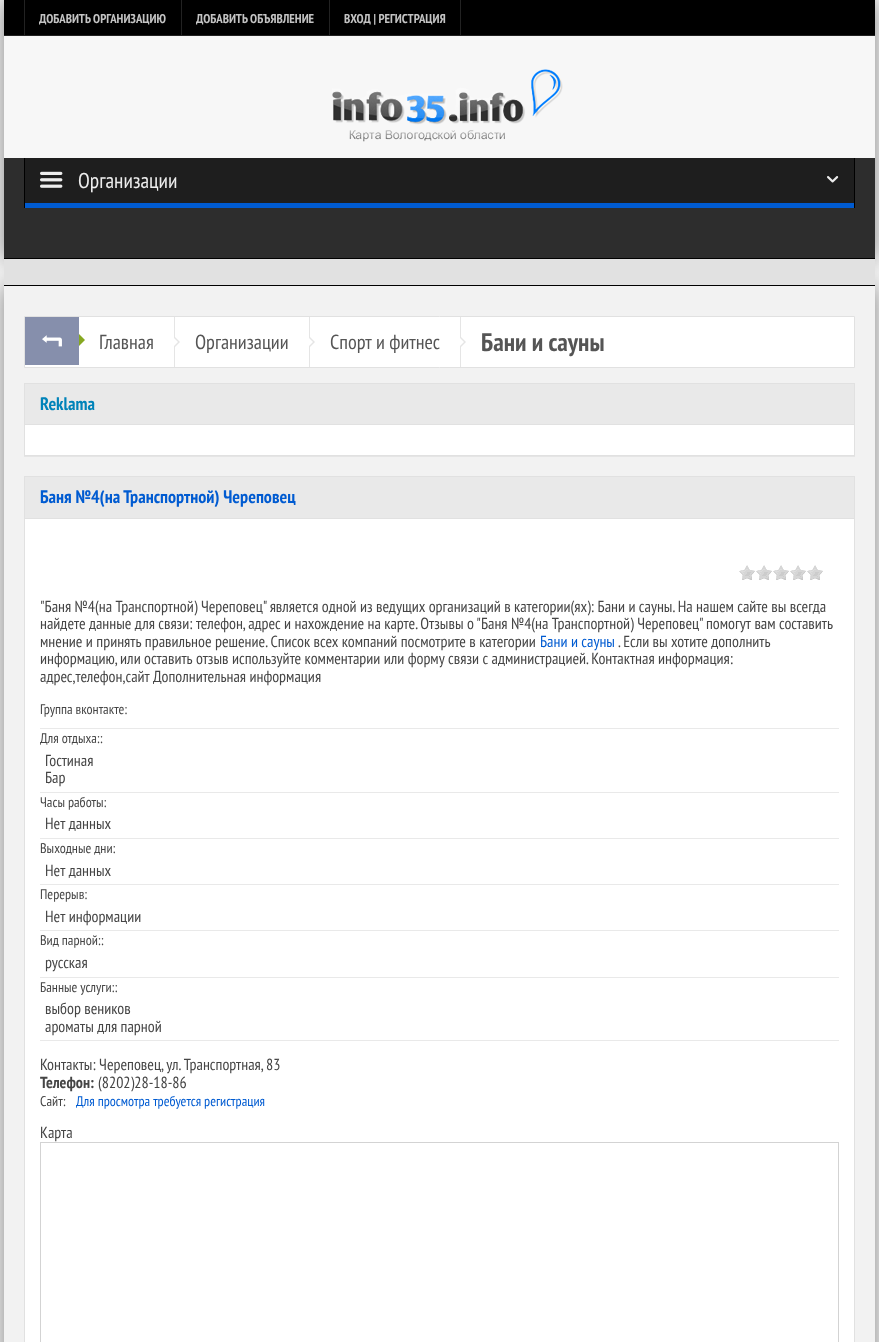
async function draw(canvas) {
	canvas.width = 879;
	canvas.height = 1342;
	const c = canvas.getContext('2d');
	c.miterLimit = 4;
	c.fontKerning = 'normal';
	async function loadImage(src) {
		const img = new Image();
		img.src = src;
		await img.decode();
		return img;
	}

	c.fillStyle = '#f2f2f2';
	c.fillRect(0, 0, 879, 1342);
	c.fillStyle = '#00000070';
	c.filter = 'blur(10.5px)';
	c.beginPath();
	c.rect(4, 0, 871, 259);
	c.fill();
	c.filter = 'none';
	for (const [x, y, w, h, color] of [
		[4, 36, 871, 122, '#f7f7f7'],
		[4, 0, 871, 35, '#000'],
		[4, 35, 871, 1, '#222'],
		[181, 0, 1, 36, '#222'],
		[24, 0, 1, 36, '#222'],
	]) {
		c.fillStyle = color;
		c.fillRect(x, y, w, h);
	}
	c.font = 'bold 12.75px PT Sans Narrow';
	c.fillStyle = '#c3c3c3';
	c.fillText('ДОБАВИТЬ ОРГАНИЗАЦИЮ', 39, 23);
	c.fillStyle = '#222';
	c.fillRect(329, 0, 1, 36);
	c.fillStyle = '#c3c3c3';
	c.fillText('ДОБАВИТЬ ОБЪЯВЛЕНИЕ', 196, 23);
	c.fillStyle = '#222';
	c.fillRect(460, 0, 1, 36);
	c.fillStyle = '#c3c3c3';
	c.fillText('ВХОД | РЕГИСТРАЦИЯ', 344, 23);
	c.drawImage(await loadImage('img1.png'), 332, 69, 231, 73);
	c.save();
	c.beginPath();
	c.moveTo(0, 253);
	c.lineTo(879, 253);
	c.lineTo(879, 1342);
	c.lineTo(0, 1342);
	c.closePath();
	c.moveTo(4, 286);
	c.lineTo(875, 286);
	c.lineTo(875, 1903);
	c.lineTo(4, 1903);
	c.closePath();
	c.clip('evenodd');
	c.fillStyle = '#00000070';
	c.filter = 'blur(10.5px)';
	c.beginPath();
	c.rect(4, 286, 871, 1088);
	c.fill();
	c.filter = 'none';
	c.restore();
	for (const [x, y, w, h, color] of [
		[4, 158, 871, 100, '#2d2d2d'],
		[4, 258, 871, 1, '#000'],
		[854, 158, 1, 50, '#000'],
		[24, 158, 1, 50, '#000'],
		[25, 158, 829, 45, '#1e1e1e'],
		[25, 203, 829, 5, '#005bd1'],
	]) {
		c.fillStyle = color;
		c.fillRect(x, y, w, h);
	}
	c.drawImage(await loadImage('img2.png'), 40, 171, 23, 17);
	c.font = '21.5px PT Sans Narrow';
	c.fillStyle = '#ededed';
	c.fillText('Организации', 78, 188);
	c.drawImage(await loadImage('img3.png'), 827, 176, 12, 7);
	c.fillStyle = '#e1e1e1';
	c.fillRect(4, 259, 871, 26);
	c.fillStyle = '#000';
	c.fillRect(4, 285, 871, 1);
	c.fillStyle = '#fff';
	c.beginPath();
	c.rect(24.5, 316.5, 830, 51);
	c.fill();
	c.strokeStyle = '#e1e1e1';
	c.stroke();
	c.fillStyle = '#868fac';
	c.fillRect(25, 317, 54, 48);
	c.drawImage(await loadImage('img4.png'), 42, 335, 20, 12);
	c.fillStyle = '#86a821';
	c.beginPath();
	c.moveTo(79, 346);
	c.lineTo(79, 334);
	c.lineTo(85, 340);
	c.closePath();
	c.fill();
	c.fillStyle = '#e5e5e5';
	c.fillRect(174, 317, 1, 50);
	c.font = '20.25px PT Sans Narrow';
	c.fillStyle = '#555';
	c.fillText('Главная', 99, 349);
	c.fillStyle = '#e5e5e5';
	c.beginPath();
	c.moveTo(174, 348);
	c.lineTo(174, 336);
	c.lineTo(180, 342);
	c.closePath();
	c.fill();
	c.fillStyle = '#fff';
	c.beginPath();
	c.moveTo(174, 346);
	c.lineTo(174, 338);
	c.lineTo(178, 342);
	c.closePath();
	c.fill();
	c.fillStyle = '#e5e5e5';
	c.fillRect(309, 317, 1, 50);
	c.fillStyle = '#555';
	c.fillText('Организации', 195, 349);
	c.fillStyle = '#e5e5e5';
	c.beginPath();
	c.moveTo(309, 348);
	c.lineTo(309, 336);
	c.lineTo(315, 342);
	c.closePath();
	c.fill();
	c.fillStyle = '#fff';
	c.beginPath();
	c.moveTo(309, 346);
	c.lineTo(309, 338);
	c.lineTo(313, 342);
	c.closePath();
	c.fill();
	c.fillStyle = '#e5e5e5';
	c.fillRect(460, 317, 1, 50);
	c.fillStyle = '#555';
	c.fillText('Спорт и фитнес', 330, 349);
	c.fillStyle = '#e5e5e5';
	c.beginPath();
	c.moveTo(460, 348);
	c.lineTo(460, 336);
	c.lineTo(466, 342);
	c.closePath();
	c.fill();
	c.fillStyle = '#fff';
	c.beginPath();
	c.moveTo(460, 346);
	c.lineTo(460, 338);
	c.lineTo(464, 342);
	c.closePath();
	c.fill();
	c.font = 'bold 25.5px PT Sans Narrow';
	c.fillStyle = '#555';
	c.fillText('Бани и сауны', 481, 351);
	c.fillStyle = '#e5e5e5';
	c.fillRect(24, 456, 831, 1);
	c.fillStyle = '#fff';
	c.fillRect(25, 425, 829, 30);
	c.strokeRect(24.5, 383.5, 830, 72);
	c.fillStyle = '#e9e9e9';
	c.fillRect(25, 384, 829, 40);
	c.fillStyle = '#e1e1e1';
	c.fillRect(25, 424, 829, 1);
	c.font = 'bold 18.1px PT Sans Narrow';
	c.fillStyle = '#0083b9';
	c.fillText('Reklama', 40, 410);
	c.fillStyle = '#fff';
	c.fillRect(25, 519, 829, 823);
	c.strokeRect(24.5, 476.5, 830, 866);
	c.fillStyle = '#e9e9e9';
	c.fillRect(25, 477, 829, 41);
	c.fillStyle = '#e1e1e1';
	c.fillRect(25, 518, 829, 1);
	c.fillStyle = '#005bd1';
	c.fillText('Баня №4(на Транспортной) Череповец', 40, 503);
	c.drawImage(await loadImage('img5.png'), 739, 565, 16, 15);
	c.drawImage(await loadImage('img5.png'), 756, 565, 16, 15);
	c.drawImage(await loadImage('img5.png'), 773, 565, 16, 15);
	c.drawImage(await loadImage('img5.png'), 790, 565, 16, 15);
	c.drawImage(await loadImage('img5.png'), 807, 565, 16, 15);
	c.font = '16px PT Sans Narrow';
	c.fillStyle = '#454545';
	for (const [text, x, y] of [
		['"Баня №4(на Транспортной) Череповец" является одной из ведущих организаций в категории(ях): Бани и сауны. На нашем сайте вы всегда', 40, 612],
		['найдете данные для связи: телефон, адрес и нахождение на карте. Отзывы о "Баня №4(на Транспортной) Череповец" помогут вам составить', 40, 629],
		['мнение и принять правильное решение. Список всех компаний посмотрите в категории', 40, 647],
	]) {
		c.fillText(text, x, y);
	}
	c.fillStyle = '#005bd1';
	c.fillText('Бани и сауны', 540, 647);
	c.fillStyle = '#454545';
	for (const [text, x, y] of [
		['. Если вы хотите дополнить', 618, 647],
		['информацию, или оставить отзыв используйте комментарии или форму связи с администрацией. Контактная информация:', 40, 664],
		['адрес,телефон,сайт Дополнительная информация', 40, 682],
	]) {
		c.fillText(text, x, y);
	}
	c.font = '14px PT Sans Narrow';
	c.fillText('Группа вконтакте:', 40, 714);
	c.fillStyle = '#e9e9e9';
	c.fillRect(40, 728, 799, 1);
	c.fillStyle = '#454545';
	c.fillText('Для отдыха::', 40, 743);
	c.fillStyle = '#e9e9e9';
	c.fillRect(40, 792, 799, 1);
	c.font = '16px PT Sans Narrow';
	c.fillStyle = '#454545';
	c.fillText('Гостиная', 45, 766);
	c.fillText('Бар', 45, 783);
	c.font = '14px PT Sans Narrow';
	c.fillText('Часы работы:', 40, 807);
	c.fillStyle = '#e9e9e9';
	c.fillRect(40, 838, 799, 1);
	c.font = '16px PT Sans Narrow';
	c.fillStyle = '#454545';
	c.fillText('Нет данных', 45, 829);
	c.font = '14px PT Sans Narrow';
	c.fillText('Выходные дни:', 40, 853);
	c.fillStyle = '#e9e9e9';
	c.fillRect(40, 884, 799, 1);
	c.font = '16px PT Sans Narrow';
	c.fillStyle = '#454545';
	c.fillText('Нет данных', 45, 876);
	c.font = '14px PT Sans Narrow';
	c.fillText('Перерыв:', 40, 899);
	c.fillStyle = '#e9e9e9';
	c.fillRect(40, 930, 799, 1);
	c.font = '16px PT Sans Narrow';
	c.fillStyle = '#454545';
	c.fillText('Нет информации', 45, 922);
	c.font = '14px PT Sans Narrow';
	c.fillText('Вид парной::', 40, 945);
	c.fillStyle = '#e9e9e9';
	c.fillRect(40, 977, 799, 1);
	c.font = '16px PT Sans Narrow';
	c.fillStyle = '#454545';
	c.fillText('русская', 45, 968);
	c.font = '14px PT Sans Narrow';
	c.fillText('Банные услуги::', 40, 992);
	c.fillStyle = '#e9e9e9';
	c.fillRect(40, 1040, 799, 1);
	c.font = '16px PT Sans Narrow';
	c.fillStyle = '#454545';
	for (const [text, x, y] of [
		['выбор веников', 45, 1014],
		['ароматы для парной', 45, 1032],
		['Контакты: Череповец, ул. Транспортная, 83', 40, 1070],
	]) {
		c.fillText(text, x, y);
	}
	c.font = 'bold 16px PT Sans Narrow';
	c.fillText('Телефон:', 40, 1088);
	c.font = '16px PT Sans Narrow';
	c.fillText('(8202)28-18-86', 98, 1088);
	c.font = '14px PT Sans Narrow';
	c.fillText('Сайт:', 40, 1106);
	c.fillStyle = '#005bd1';
	c.fillText('Для просмотра требуется регистрация', 76, 1106);
	c.font = '16px PT Sans Narrow';
	c.fillStyle = '#454545';
	c.fillText('Карта', 40, 1138);
	c.strokeStyle = '#d3d3d3';
	c.strokeRect(40.5, 1142.5, 798, 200);
}

draw(document.querySelector('canvas'));
